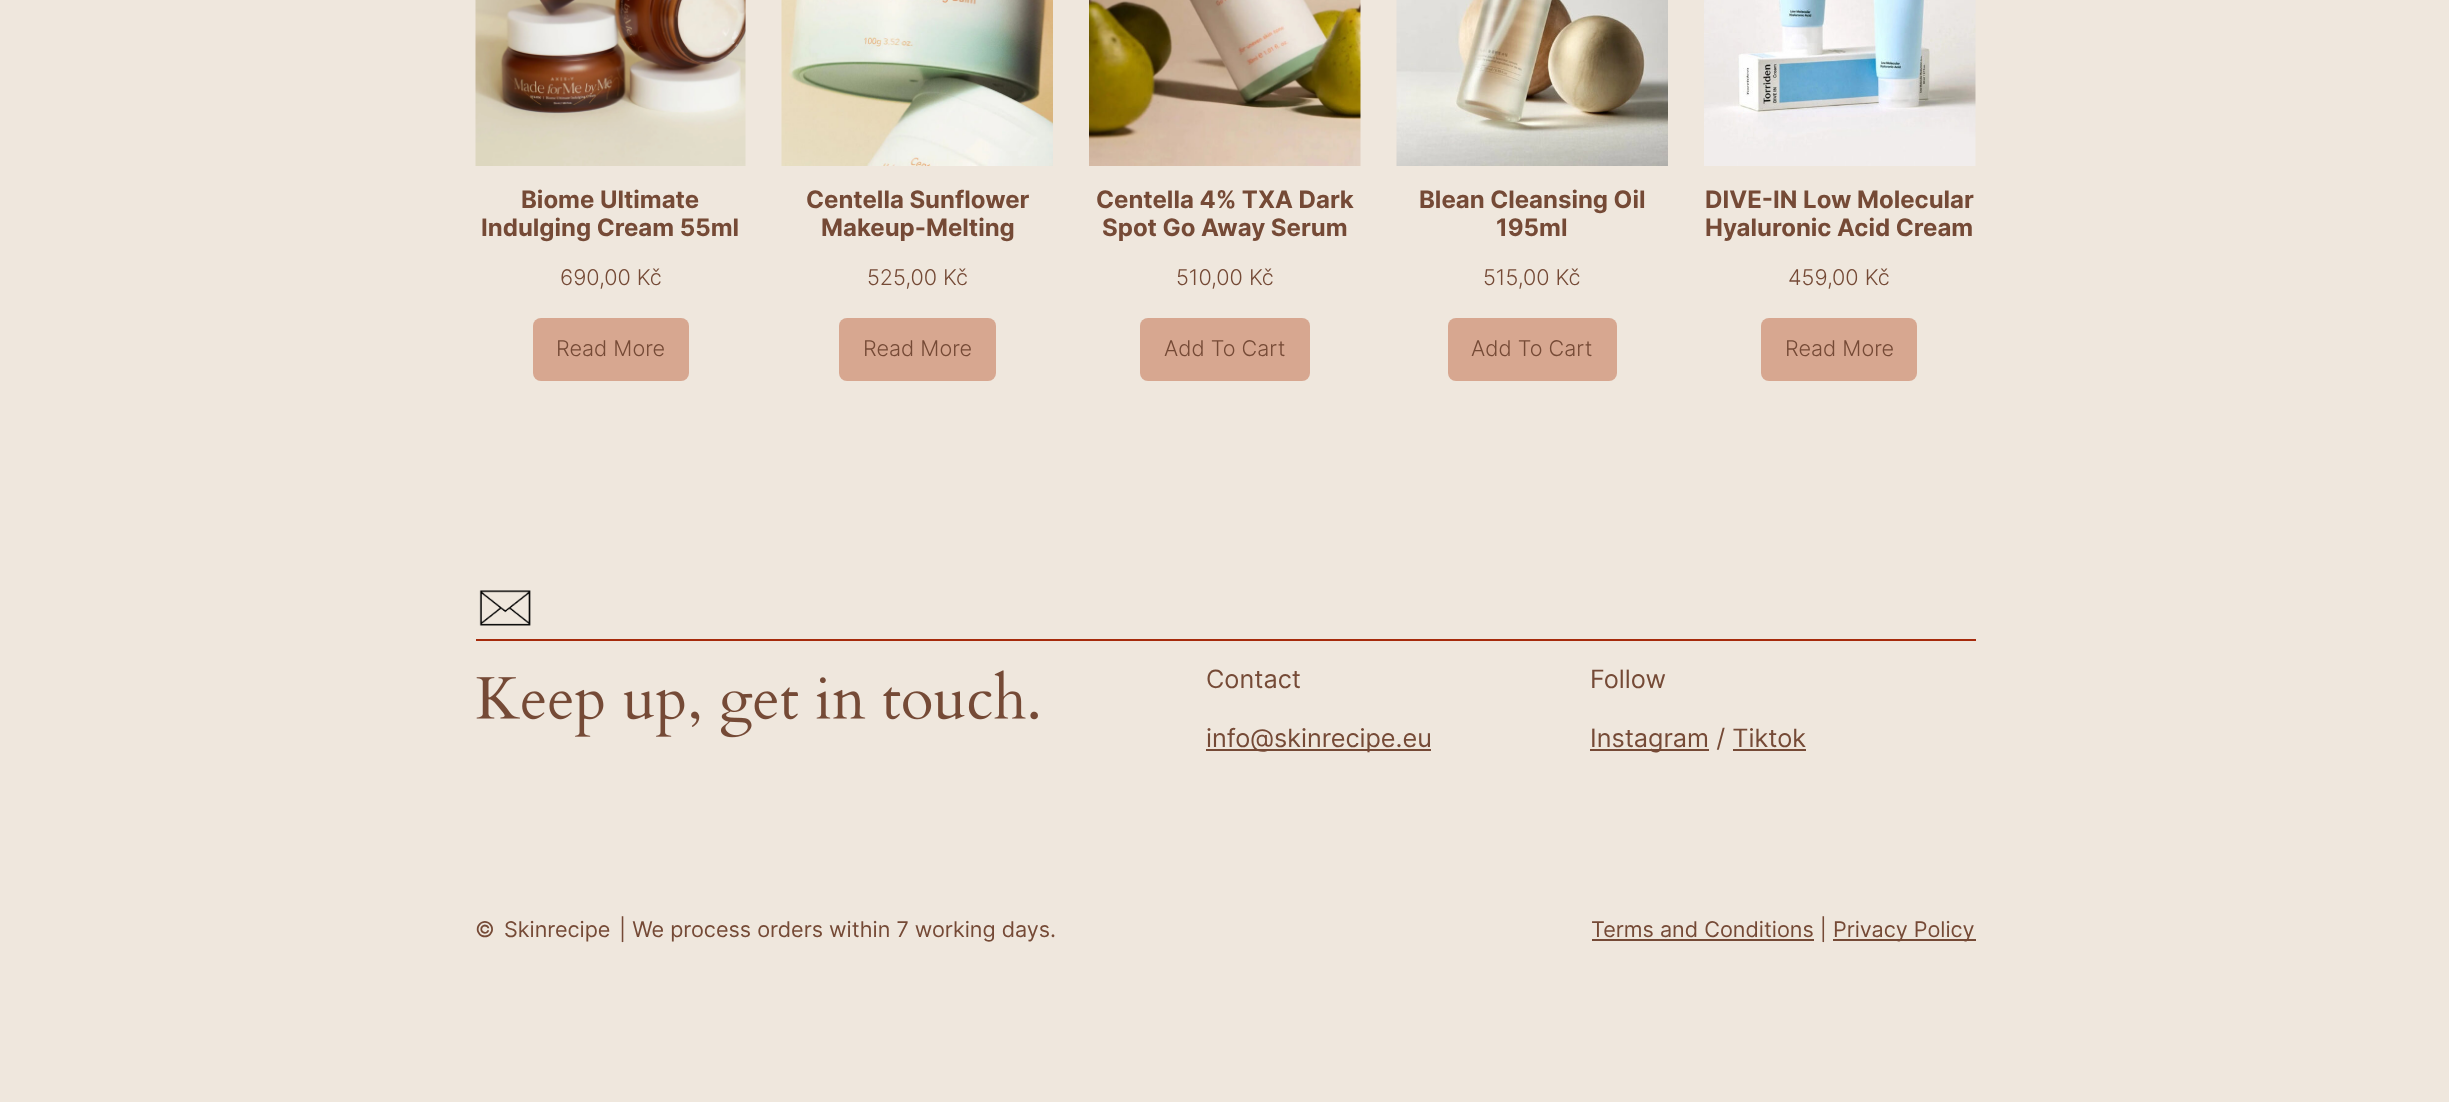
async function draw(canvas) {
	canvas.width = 2449;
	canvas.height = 1102;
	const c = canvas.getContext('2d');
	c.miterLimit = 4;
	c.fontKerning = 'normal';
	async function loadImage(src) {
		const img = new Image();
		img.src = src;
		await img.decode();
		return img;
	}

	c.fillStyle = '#efe7dd';
	c.fillRect(0, 0, 2449, 1102);
	c.drawImage(await loadImage('img1.png'), 475, 0, 271, 166);
	c.font = 'bold 24px Inter';
	c.fillStyle = '#754a36';
	c.fillText('Biome Ultimate', 521, 208);
	c.fillText('Indulging Cream 55ml', 481, 236);
	c.font = '300 21.6px Inter';
	c.fillText('690,00 Kč', 560, 285);
	c.fillStyle = '#d7a790';
	c.beginPath();
	c.roundRect(533, 318, 156, 63, 8);
	c.fill();
	c.fillStyle = '#754a36';
	c.fillText('Read More', 556, 356);
	c.drawImage(await loadImage('img2.png'), 781, 0, 272, 166);
	c.font = 'bold 24px Inter';
	c.fillText('Centella Sunflower', 806, 208);
	c.fillText('Makeup-Melting', 821, 236);
	c.font = '300 21.6px Inter';
	c.fillText('525,00 Kč', 867, 285);
	c.fillStyle = '#d7a790';
	c.beginPath();
	c.roundRect(839, 318, 157, 63, 8);
	c.fill();
	c.fillStyle = '#754a36';
	c.fillText('Read More', 863, 356);
	c.drawImage(await loadImage('img3.png'), 1089, 0, 272, 166);
	c.font = 'bold 24px Inter';
	c.fillText('Centella 4% TXA Dark', 1096, 208);
	c.fillText('Spot Go Away Serum', 1102, 236);
	c.font = '300 21.6px Inter';
	c.fillText('510,00 Kč', 1176, 285);
	c.fillStyle = '#d7a790';
	c.beginPath();
	c.roundRect(1140, 318, 170, 63, 8);
	c.fill();
	c.fillStyle = '#754a36';
	c.fillText('Add To Cart', 1164, 356);
	c.drawImage(await loadImage('img4.png'), 1396, 0, 272, 166);
	c.font = 'bold 24px Inter';
	c.fillText('Blean Cleansing Oil', 1419, 208);
	c.fillText('195ml', 1496, 236);
	c.font = '300 21.6px Inter';
	c.fillText('515,00 Kč', 1483, 285);
	c.fillStyle = '#d7a790';
	c.beginPath();
	c.roundRect(1448, 318, 169, 63, 8);
	c.fill();
	c.fillStyle = '#754a36';
	c.fillText('Add To Cart', 1471, 356);
	c.drawImage(await loadImage('img5.png'), 1704, 0, 272, 166);
	c.font = 'bold 24px Inter';
	c.fillText('DIVE-IN Low Molecular', 1705, 208);
	c.fillText('Hyaluronic Acid Cream', 1705, 236);
	c.font = '300 21.6px Inter';
	c.fillText('459,00 Kč', 1788, 285);
	c.fillStyle = '#d7a790';
	c.beginPath();
	c.roundRect(1761, 318, 156, 63, 8);
	c.fill();
	c.fillStyle = '#754a36';
	c.fillText('Read More', 1785, 356);
	c.drawImage(await loadImage('img6.png'), 479, 590, 52, 36);
	c.fillStyle = '#a62b0c';
	c.fillRect(476, 639, 1500, 2);
	c.drawImage(await loadImage('img7.png'), 476, 670, 562, 68);
	c.font = '25.25px Inter';
	c.fillStyle = '#754a36';
	c.fillText('Contact', 1206, 688);
	c.fillRect(1206, 749, 225, 2);
	c.fillText('info@skinrecipe.eu', 1206, 747);
	c.fillText('Follow', 1590, 688);
	c.fillRect(1590, 749, 119, 2);
	c.fillText('Instagram / Tiktok', 1590, 747);
	c.fillRect(1733, 749, 73, 2);
	c.font = '21.6px Inter';
	for (const [text, x, y] of [
		['©', 475, 937],
		['Skinrecipe', 504, 937],
		['| We process orders within 7 working days.', 619, 937],
	]) {
		c.fillText(text, x, y);
	}
	c.fillRect(1592, 939, 222, 2);
	c.fillText('Terms and Conditions |', 1591, 937);
	c.fillRect(1833, 939, 143, 2);
	c.fillText('Privacy Policy', 1833, 937);
}

draw(document.querySelector('canvas'));
